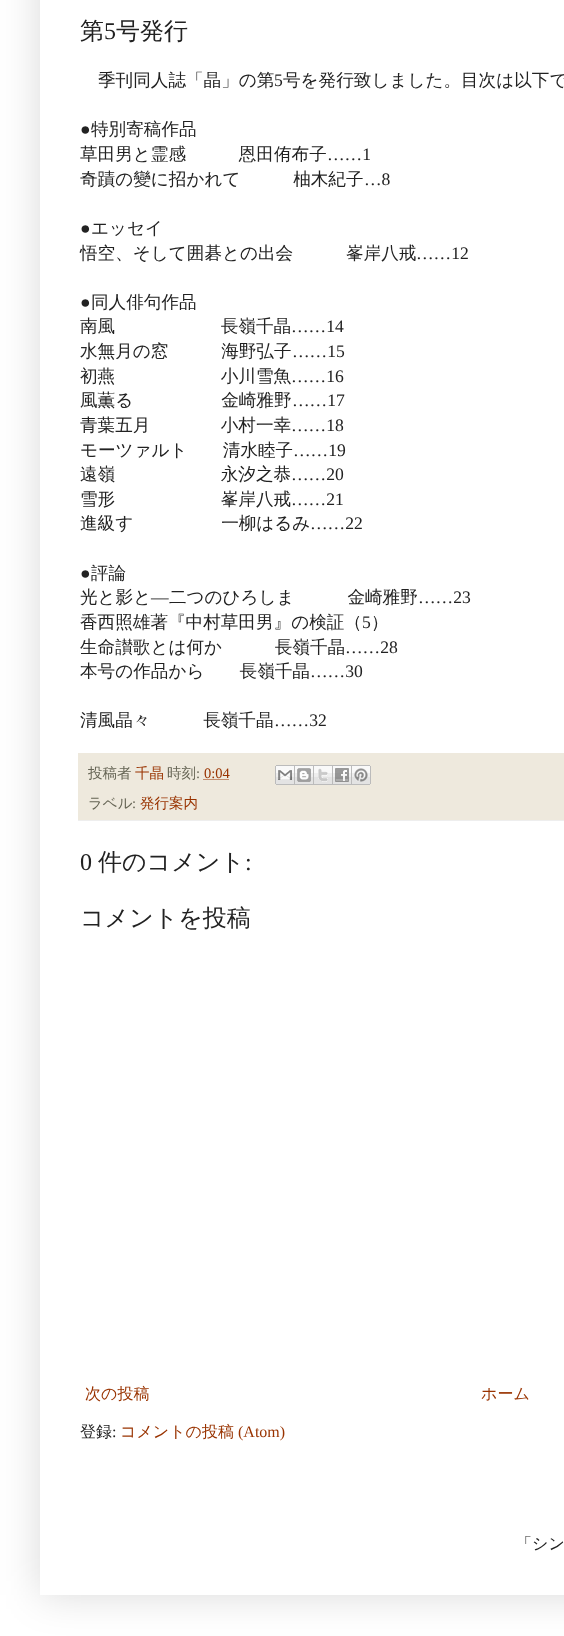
async function draw(canvas) {
	canvas.width = 564;
	canvas.height = 1636;
	const c = canvas.getContext('2d');
	c.miterLimit = 4;
	c.fontKerning = 'normal';
	async function loadImage(src) {
		const img = new Image();
		img.src = src;
		await img.decode();
		return img;
	}

	c.fillStyle = '#fff';
	c.fillRect(0, 0, 564, 1636);
	c.save();
	c.beginPath();
	c.moveTo(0, 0);
	c.lineTo(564, 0);
	c.lineTo(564, 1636);
	c.lineTo(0, 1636);
	c.closePath();
	c.moveTo(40, -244);
	c.lineTo(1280, -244);
	c.lineTo(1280, 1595);
	c.lineTo(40, 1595);
	c.closePath();
	c.clip('evenodd');
	c.fillStyle = '#00000026';
	c.filter = 'blur(20px)';
	c.beginPath();
	c.rect(40, -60, 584, 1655);
	c.fill();
	c.filter = 'none';
	c.restore();
	c.font = '500 24px WenQuanYi Zen Hei';
	c.fillStyle = '#222';
	c.fillText('第', 80, 39);
	c.font = '24px Liberation Serif';
	c.fillText('5', 104, 39);
	c.font = '500 24px WenQuanYi Zen Hei';
	c.fillText('号発行', 116, 39);
	c.font = '500 17.6px WenQuanYi Zen Hei';
	c.fillText('季刊同人誌「晶」の第', 98, 86);
	c.font = '17.6px Liberation Serif';
	c.fillText('5', 274, 86);
	c.font = '500 17.6px WenQuanYi Zen Hei';
	c.fillText('号を発行致しました。目次は以下で', 283, 86);
	c.font = '17.6px Liberation Serif';
	c.fillText('●', 80, 135);
	c.font = '500 17.6px WenQuanYi Zen Hei';
	c.fillText('特別寄稿作品', 91, 135);
	c.fillText('草田男と霊感　　　恩田侑布子', 80, 160);
	c.font = '17.6px Liberation Serif';
	c.fillText('……1', 327, 160);
	c.font = '500 17.6px WenQuanYi Zen Hei';
	c.fillText('奇蹟の變に招かれて　　　柚木紀子', 80, 185);
	c.font = '17.6px Liberation Serif';
	c.fillText('…8', 364, 185);
	c.fillText('●', 80, 234);
	c.font = '500 17.6px WenQuanYi Zen Hei';
	c.fillText('エッセイ', 91, 234);
	c.fillText('悟空、そして囲碁との出会　　　峯岸八戒', 80, 259);
	c.font = '17.6px Liberation Serif';
	c.fillText('……12', 416, 259);
	c.fillText('●', 80, 308);
	c.font = '500 17.6px WenQuanYi Zen Hei';
	c.fillText('同人俳句作品', 91, 308);
	c.fillText('南風　　　　　　長嶺千晶', 80, 332);
	c.font = '17.6px Liberation Serif';
	c.fillText('……14', 291, 332);
	c.font = '500 17.6px WenQuanYi Zen Hei';
	c.fillText('水無月の窓　　　海野弘子', 80, 357);
	c.font = '17.6px Liberation Serif';
	c.fillText('……15', 292, 357);
	c.font = '500 17.6px WenQuanYi Zen Hei';
	c.fillText('初燕　　　　　　小川雪魚', 80, 382);
	c.font = '17.6px Liberation Serif';
	c.fillText('……16', 291, 382);
	c.font = '500 17.6px WenQuanYi Zen Hei';
	c.fillText('風薫る　　　　　金崎雅野', 80, 406);
	c.font = '17.6px Liberation Serif';
	c.fillText('……17', 292, 406);
	c.font = '500 17.6px WenQuanYi Zen Hei';
	c.fillText('青葉五月　　　　小村一幸', 80, 431);
	c.font = '17.6px Liberation Serif';
	c.fillText('……18', 291, 431);
	c.font = '500 17.6px WenQuanYi Zen Hei';
	c.fillText('モーツァルト　　清水睦子', 80, 456);
	c.font = '17.6px Liberation Serif';
	c.fillText('……19', 293, 456);
	c.font = '500 17.6px WenQuanYi Zen Hei';
	c.fillText('遠嶺　　　　　　永汐之恭', 80, 480);
	c.font = '17.6px Liberation Serif';
	c.fillText('……20', 291, 480);
	c.font = '500 17.6px WenQuanYi Zen Hei';
	c.fillText('雪形　　　　　　峯岸八戒', 80, 505);
	c.font = '17.6px Liberation Serif';
	c.fillText('……21', 291, 505);
	c.font = '500 17.6px WenQuanYi Zen Hei';
	c.fillText('進級す　　　　　一柳はるみ', 80, 529);
	c.font = '17.6px Liberation Serif';
	c.fillText('……22', 310, 529);
	c.fillText('●', 80, 579);
	c.font = '500 17.6px WenQuanYi Zen Hei';
	c.fillText('評論', 91, 579);
	c.fillText('光と影と', 80, 603);
	c.font = '17.6px Liberation Serif';
	c.fillText('―', 151, 603);
	c.font = '500 17.6px WenQuanYi Zen Hei';
	c.fillText('二つのひろしま　　　金崎雅野', 169, 603);
	c.font = '17.6px Liberation Serif';
	c.fillText('……23', 418, 603);
	c.font = '500 17.6px WenQuanYi Zen Hei';
	c.fillText('香西照雄著『中村草田男』の検証（', 80, 628);
	c.font = '17.6px Liberation Serif';
	c.fillText('5', 362, 628);
	c.font = '500 17.6px WenQuanYi Zen Hei';
	c.fillText('）', 371, 628);
	c.fillText('生命讃歌とは何か　　　長嶺千晶', 80, 653);
	c.font = '17.6px Liberation Serif';
	c.fillText('……28', 345, 653);
	c.font = '500 17.6px WenQuanYi Zen Hei';
	c.fillText('本号の作品から　　長嶺千晶', 80, 677);
	c.font = '17.6px Liberation Serif';
	c.fillText('……30', 310, 677);
	c.font = '500 17.6px WenQuanYi Zen Hei';
	c.fillText('清風晶々　　　長嶺千晶', 80, 726);
	c.font = '17.6px Liberation Serif';
	c.fillText('……32', 274, 726);
	c.fillStyle = '#eee9dd';
	c.fillRect(78, 753, 486, 67);
	c.fillStyle = '#eee';
	c.fillRect(78, 820, 486, 1);
	c.font = '500 14.5px WenQuanYi Zen Hei';
	c.fillStyle = '#666555';
	c.fillText('投稿者', 88, 778);
	c.fillStyle = '#930';
	c.fillText('千晶', 135, 778);
	c.fillStyle = '#666555';
	c.fillText('時刻', 167, 778);
	c.font = '14.5px Liberation Serif';
	c.fillText(':', 196, 778);
	c.fillStyle = '#930';
	c.fillText('0:04', 204, 778);
	c.beginPath();
	c.moveTo(203.5, 779.5);
	c.lineTo(229, 779.5);
	c.strokeStyle = '#930';
	c.setLineDash([1, 1]);
	c.stroke();
	c.drawImage(await loadImage('img1.png'), 275, 765, 20, 20);
	c.drawImage(await loadImage('img2.png'), 295, 765, 19, 20);
	c.drawImage(await loadImage('img3.png'), 314, 765, 19, 20);
	c.drawImage(await loadImage('img4.png'), 333, 765, 19, 20);
	c.drawImage(await loadImage('img5.png'), 352, 765, 19, 20);
	c.font = '500 14.5px WenQuanYi Zen Hei';
	c.fillStyle = '#666555';
	c.fillText('ラベル', 88, 808);
	c.font = '14.5px Liberation Serif';
	c.fillText(':', 132, 808);
	c.font = '500 14.5px WenQuanYi Zen Hei';
	c.fillStyle = '#930';
	c.fillText('発行案内', 140, 808);
	c.font = '24px Liberation Serif';
	c.fillStyle = '#222';
	c.fillText('0', 80, 870);
	c.font = '500 24px WenQuanYi Zen Hei';
	c.fillText('件のコメント', 98, 870);
	c.font = '24px Liberation Serif';
	c.fillText(':', 245, 870);
	c.font = '500 24px WenQuanYi Zen Hei';
	c.fillText('コメントを投稿', 80, 926);
	c.font = '500 16px WenQuanYi Zen Hei';
	c.fillStyle = '#930';
	c.fillText('次の投稿', 85, 1399);
	c.fillText('ホーム', 481, 1399);
	c.fillStyle = '#222';
	c.fillText('登録', 80, 1437);
	c.font = '16px Liberation Serif';
	c.fillText(':', 112, 1437);
	c.font = '500 16px WenQuanYi Zen Hei';
	c.fillStyle = '#930';
	c.fillText('コメントの投稿', 120, 1437);
	c.font = '16px Liberation Serif';
	c.fillText('(Atom)', 238, 1437);
	c.font = '500 16px WenQuanYi Zen Hei';
	c.fillStyle = '#222';
	c.fillText('「シン', 516, 1549);
}

draw(document.querySelector('canvas'));
